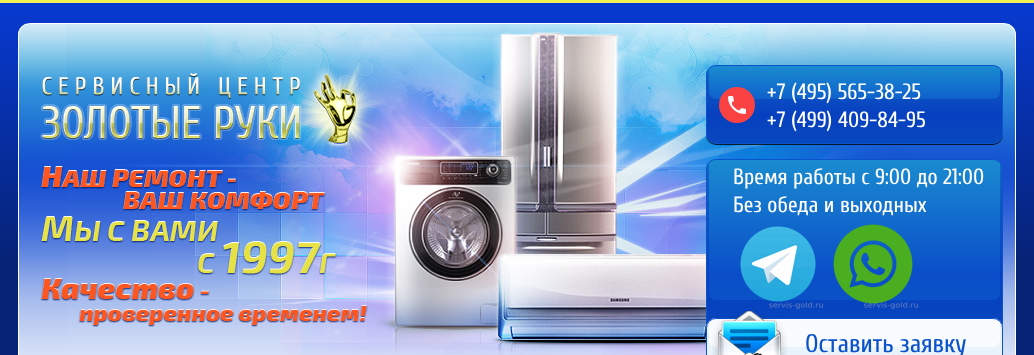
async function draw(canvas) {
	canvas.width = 1034;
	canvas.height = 355;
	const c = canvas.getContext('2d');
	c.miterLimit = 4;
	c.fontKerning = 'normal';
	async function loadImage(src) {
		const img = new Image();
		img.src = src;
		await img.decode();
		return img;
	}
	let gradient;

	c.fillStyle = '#fff';
	c.fillRect(0, 0, 1034, 355);
	gradient = c.createLinearGradient(517, 0, 517, 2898);
	gradient.addColorStop(0, '#073ad2');
	gradient.addColorStop(0.09, '#062376');
	c.fillStyle = gradient;
	c.fillRect(0, 3, 1034, 352);
	c.fillStyle = '#f6f154';
	c.fillRect(0, 0, 1034, 3);
	c.drawImage(await loadImage('img1.png'), 18, 24, 998, 331);
	c.beginPath();
	c.roundRect(18.5, 23.5, 997, 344, 11.5);
	c.strokeStyle = '#fff';
	c.stroke();
	c.drawImage(await loadImage('img2.png'), 40, 60, 346, 98);
	c.drawImage(await loadImage('img3.png'), 40, 166, 328, 161);
	c.fillStyle = '#000000c9';
	c.filter = 'blur(0.5px)';
	c.beginPath();
	c.roundRect(706, 66, 297, 79, 10);
	c.fill();
	c.filter = 'none';
	c.save();
	c.beginPath();
	c.roundRect(706, 65, 297, 79, 10);
	c.clip();
	gradient = c.createLinearGradient(855, 66, 855, 143);
	gradient.addColorStop(0, '#1a8bd0');
	gradient.addColorStop(0.62, '#0a4ec9');
	gradient.addColorStop(1, '#0b59c3');
	c.fillStyle = gradient;
	c.fillRect(706, 66, 297, 77);
	c.restore();
	c.fillStyle = '#052db566';
	c.beginPath();
	c.moveTo(709, 69);
	c.bezierCurveTo(708, 71, 707, 73, 707, 75);
	c.lineTo(707, 134);
	c.bezierCurveTo(707, 139, 711, 143, 716, 143);
	c.lineTo(993, 143);
	c.bezierCurveTo(998, 143, 1002, 139, 1002, 134);
	c.lineTo(1002, 75);
	c.bezierCurveTo(1002, 73, 1001, 71, 1000, 69);
	c.lineTo(1000, 92);
	c.bezierCurveTo(1000, 96, 997, 99, 993, 99);
	c.lineTo(716, 99);
	c.bezierCurveTo(712, 99, 709, 96, 709, 92);
	c.closePath();
	c.fill();
	c.beginPath();
	c.roundRect(706.5, 65.5, 296, 78, 9.5);
	c.strokeStyle = '#0b53ca';
	c.stroke();
	c.fillStyle = '#fb4243';
	c.beginPath();
	c.arc(737, 105, 18, 0, 2 * Math.PI);
	c.fill();
	c.drawImage(await loadImage('img4.png'), 728, 96, 18, 18);
	c.font = '22px Cuprum';
	c.fillStyle = '#fff';
	c.fillText('+7 (495) 565-38-25', 767, 99);
	c.fillText('+7 (499) 409-84-95', 767, 127);
	c.fillStyle = '#000000c9';
	c.filter = 'blur(0.5px)';
	c.beginPath();
	c.roundRect(706, 160, 297, 186, 10);
	c.fill();
	c.filter = 'none';
	c.save();
	c.beginPath();
	c.roundRect(706, 159, 297, 186, 10);
	c.clip();
	gradient = c.createLinearGradient(855, 160, 855, 344);
	gradient.addColorStop(0, '#1a8bd0');
	gradient.addColorStop(0.62, '#0a4ec9');
	gradient.addColorStop(1, '#0b59c3');
	c.fillStyle = gradient;
	c.fillRect(706, 160, 297, 164);
	c.restore();
	c.fillStyle = '#052db566';
	c.beginPath();
	c.moveTo(709, 163);
	c.bezierCurveTo(708, 165, 707, 167, 707, 169);
	c.lineTo(707, 335);
	c.bezierCurveTo(707, 340, 711, 344, 716, 344);
	c.lineTo(993, 344);
	c.bezierCurveTo(998, 344, 1002, 340, 1002, 335);
	c.lineTo(1002, 169);
	c.bezierCurveTo(1002, 167, 1001, 165, 1000, 163);
	c.lineTo(1000, 293);
	c.bezierCurveTo(1000, 297, 997, 300, 993, 300);
	c.lineTo(716, 300);
	c.bezierCurveTo(712, 300, 709, 297, 709, 293);
	c.closePath();
	c.fill();
	c.beginPath();
	c.roundRect(706.5, 159.5, 296, 185, 9.5);
	c.stroke();
	c.fillStyle = '#fff';
	c.fillText('Время работы с 9:00 до 21:00', 733, 184);
	c.fillText('Без обеда и выходных', 733, 212);
	c.drawImage(await loadImage('img5.png'), 740, 226, 83, 83);
	c.drawImage(await loadImage('img6.png'), 833, 224, 85, 85);
	c.fillStyle = '#fafbfe';
	c.beginPath();
	c.roundRect(706, 318, 297, 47, 10);
	c.fill();
	c.fillStyle = '#e8f3fb';
	c.beginPath();
	c.moveTo(709, 322);
	c.bezierCurveTo(708, 324, 707, 326, 707, 328);
	c.lineTo(707, 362);
	c.bezierCurveTo(707, 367, 711, 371, 716, 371);
	c.lineTo(993, 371);
	c.bezierCurveTo(998, 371, 1002, 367, 1002, 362);
	c.lineTo(1002, 328);
	c.bezierCurveTo(1002, 326, 1001, 324, 1000, 322);
	c.lineTo(1000, 340);
	c.bezierCurveTo(1000, 344, 997, 347, 993, 347);
	c.lineTo(716, 347);
	c.bezierCurveTo(712, 347, 709, 344, 709, 340);
	c.closePath();
	c.fill();
	c.beginPath();
	c.roundRect(706.5, 318.5, 296, 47, 9.5);
	c.stroke();
	c.drawImage(await loadImage('img7.png'), 712, 310, 75, 45);
	c.font = '25.5px Cuprum';
	c.fillStyle = '#0b53ca';
	c.fillText('Оставить заявку', 805, 352);
}

draw(document.querySelector('canvas'));
